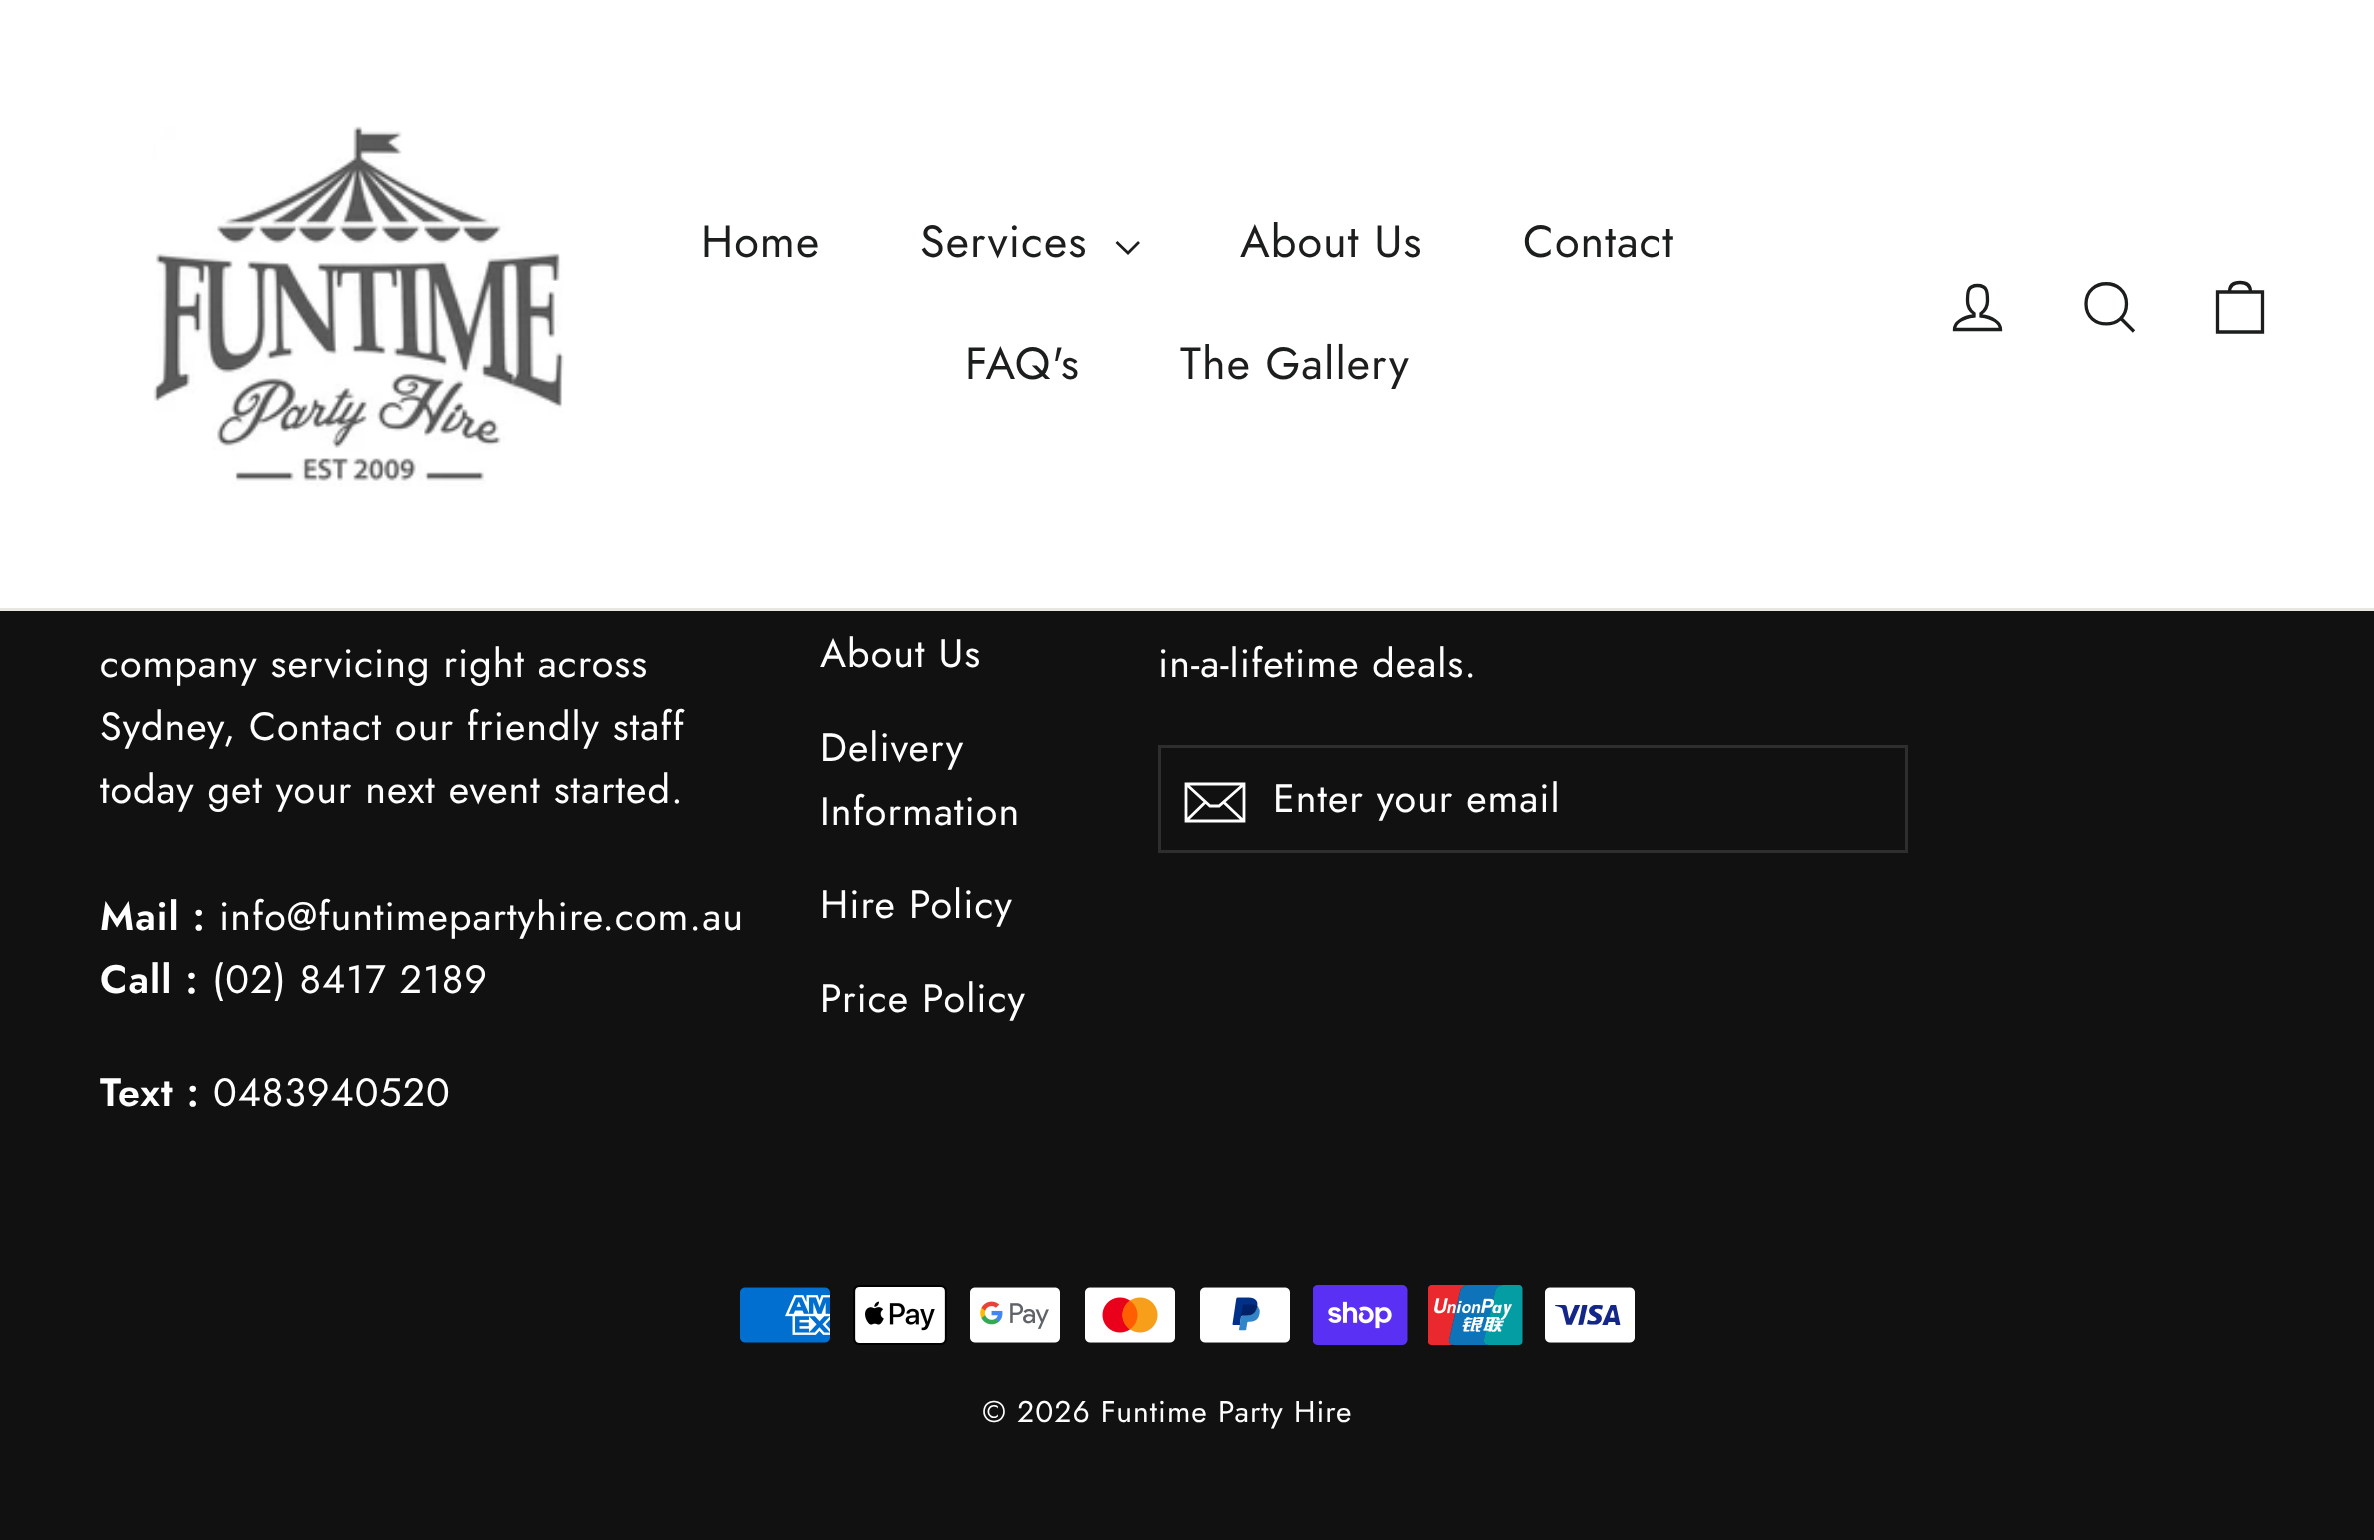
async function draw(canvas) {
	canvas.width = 2374;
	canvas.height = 1540;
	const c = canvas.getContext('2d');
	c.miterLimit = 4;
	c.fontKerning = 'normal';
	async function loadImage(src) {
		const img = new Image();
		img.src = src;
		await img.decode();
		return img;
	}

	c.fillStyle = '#111';
	c.fillRect(0, 0, 2374, 1540);
	c.fillStyle = '#fff';
	c.fillRect(0, 0, 2374, 608);
	c.fillStyle = '#e8e8e1';
	c.fillRect(0, 608, 2374, 3);
	c.drawImage(await loadImage('img1.png'), 153, 126, 411, 361);
	c.letterSpacing = '1.05px';
	c.font = '45px Jost';
	c.fillStyle = '#1c1d1d';
	c.fillText('Home', 701, 257);
	c.fillText('Services', 920, 257);
	c.beginPath();
	c.moveTo(1116.5, 242);
	c.lineTo(1128, 253);
	c.lineTo(1139, 242);
	c.strokeStyle = '#1c1d1d';
	c.lineWidth = 2.7;
	c.stroke();
	for (const [text, x, y] of [
		['About Us', 1240, 257],
		['Contact', 1523, 257],
		['FAQ\'s', 965, 379],
		['The Gallery', 1180, 379],
	]) {
		c.fillText(text, x, y);
	}
	c.beginPath();
	c.moveTo(1981, 316);
	c.lineTo(1981, 313.5);
	c.bezierCurveTo(1984.5, 311, 1987.5, 306, 1987.5, 301);
	c.bezierCurveTo(1987.5, 292.5, 1987.5, 285.5, 1977.5, 285.5);
	c.bezierCurveTo(1967.5, 285.5, 1967.5, 292.5, 1967.5, 301);
	c.bezierCurveTo(1967.5, 306, 1970.5, 311, 1974, 313.5);
	c.lineTo(1974, 316);
	c.bezierCurveTo(1963, 317, 1954.5, 322.5, 1954.5, 329.5);
	c.lineTo(2000.5, 329.5);
	c.bezierCurveTo(2000.5, 322.5, 1992, 317, 1981, 316);
	c.closePath();
	c.lineWidth = 3.3;
	c.stroke();
	c.beginPath();
	c.moveTo(2126.5, 304);
	c.bezierCurveTo(2126.5, 330.5, 2086, 330.5, 2086, 304);
	c.bezierCurveTo(2086, 277, 2126.5, 277, 2126.5, 304);
	c.closePath();
	c.moveTo(2134, 331.5);
	c.lineTo(2121, 318.5);
	c.stroke();
	c.beginPath();
	c.moveTo(2217.5, 292);
	c.lineTo(2262.5, 292);
	c.lineTo(2262.5, 332);
	c.lineTo(2217.5, 332);
	c.closePath();
	c.moveTo(2229.5, 292);
	c.bezierCurveTo(2229.5, 284.5, 2234, 282.5, 2240, 282.5);
	c.bezierCurveTo(2246, 282.5, 2250.5, 284.5, 2250.5, 292);
	c.stroke();
	c.letterSpacing = '1px';
	c.font = '39.5px Jost';
	c.fillStyle = '#fff';
	for (const [text, x, y] of [
		['company servicing right across', 100, 677],
		['Sydney, Contact our friendly staff', 100, 740],
		['today get your next event started.', 100, 803],
	]) {
		c.fillText(text, x, y);
	}
	c.font = '600 39.5px Jost';
	c.fillText('Mail :', 100, 930);
	c.font = '39.5px Jost';
	c.fillText('info@funtimepartyhire.com.au', 219, 930);
	c.font = '600 39.5px Jost';
	c.fillText('Call :', 100, 993);
	c.font = '39.5px Jost';
	c.fillText('(02) 8417 2189', 212, 993);
	c.font = '600 39.5px Jost';
	c.fillText('Text :', 100, 1106);
	c.font = '39.5px Jost';
	c.fillText('0483940520', 213, 1106);
	c.letterSpacing = '1.05px';
	for (const [text, x, y] of [
		['About Us', 820, 667],
		['Delivery', 820, 761],
		['Information', 820, 825],
		['Hire Policy', 820, 918],
		['Price Policy', 820, 1012],
	]) {
		c.fillText(text, x, y);
	}
	c.letterSpacing = '1px';
	c.fillText('in-a-lifetime deals.', 1158, 677);
	c.strokeStyle = '#2e2e2e';
	c.lineWidth = 3;
	c.strokeRect(1159.5, 746.5, 747, 105);
	c.beginPath();
	c.moveTo(1244, 821);
	c.lineTo(1186, 821);
	c.lineTo(1186, 784);
	c.lineTo(1244, 784);
	c.closePath();
	c.moveTo(1186, 784);
	c.lineTo(1210, 806);
	c.lineTo(1219, 806);
	c.lineTo(1244, 784);
	c.moveTo(1205.5, 802);
	c.lineTo(1186.5, 820.5);
	c.moveTo(1243.5, 821);
	c.lineTo(1223.5, 802);
	c.strokeStyle = '#fff';
	c.lineWidth = 2.8;
	c.stroke();
	c.fillText('Enter your email', 1273, 812);
	c.drawImage(await loadImage('img2.png'), 740, 1287, 90, 56);
	c.drawImage(await loadImage('img3.png'), 853, 1285, 94, 60);
	c.drawImage(await loadImage('img4.png'), 970, 1287, 90, 56);
	c.drawImage(await loadImage('img5.png'), 1085, 1287, 90, 56);
	c.drawImage(await loadImage('img6.png'), 1200, 1287, 90, 56);
	c.drawImage(await loadImage('img7.png'), 1313, 1285, 95, 60);
	c.drawImage(await loadImage('img8.png'), 1428, 1285, 95, 60);
	c.drawImage(await loadImage('img9.png'), 1545, 1287, 90, 56);
	c.letterSpacing = '1.05px';
	c.font = '30px Jost';
	c.fillText('© 2026 Funtime Party Hire', 982, 1422);
}

draw(document.querySelector('canvas'));
